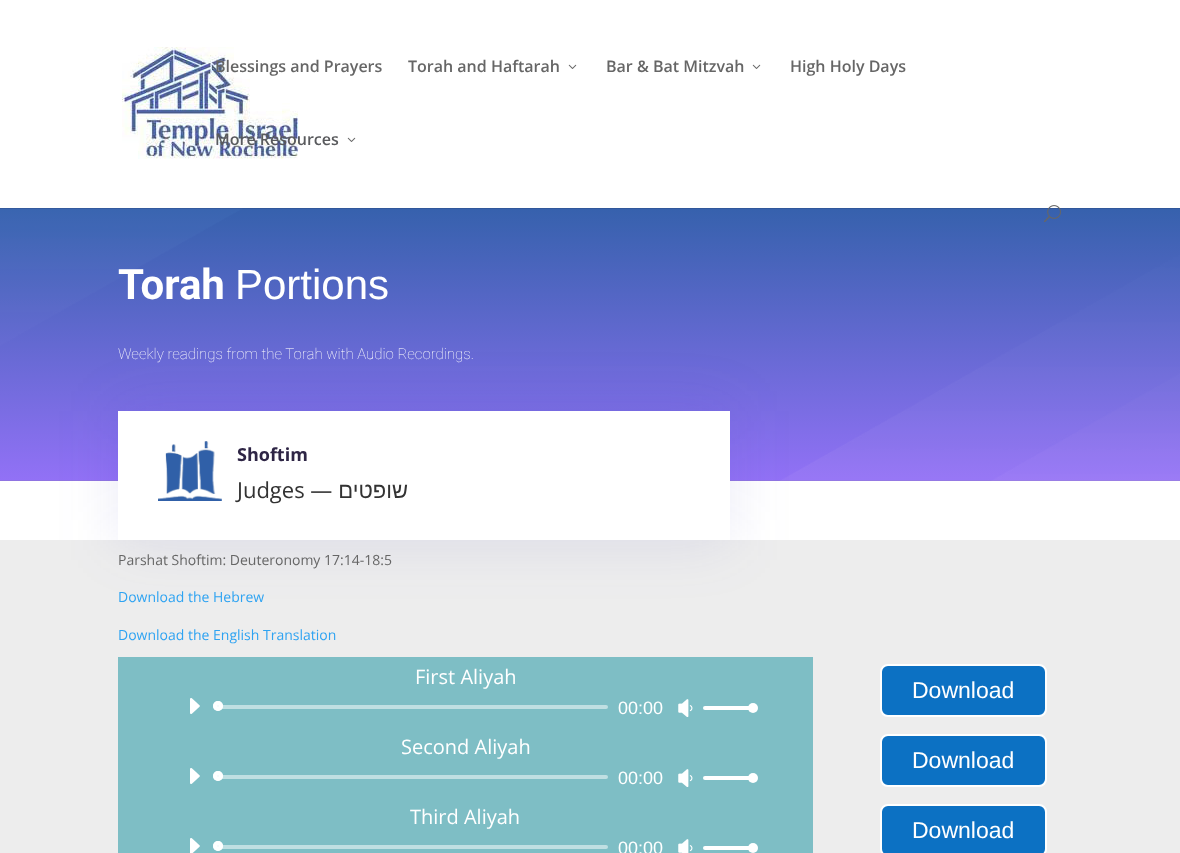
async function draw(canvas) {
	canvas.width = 1180;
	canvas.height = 853;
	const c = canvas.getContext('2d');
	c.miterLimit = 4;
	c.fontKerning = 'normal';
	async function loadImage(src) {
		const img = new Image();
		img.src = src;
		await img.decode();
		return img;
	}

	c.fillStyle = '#fff';
	c.fillRect(0, 0, 1180, 853);
	c.drawImage(await loadImage('img4.png'), 0, 208, 1180, 273);
	c.fillStyle = '#0000001a';
	c.fillRect(0, 208, 1180, 1);
	c.drawImage(await loadImage('img1.png'), 122, 47, 177, 112);
	c.font = '600 16px Open Sans';
	c.fillStyle = '#666';
	c.fillText('Blessings and Prayers', 215, 72);
	c.fillText('Torah and Haftarah', 408, 72);
	c.drawImage(await loadImage('img2.png'), 568, 64, 9, 5);
	c.fillText('Bar & Bat Mitzvah', 606, 72);
	c.drawImage(await loadImage('img2.png'), 752, 64, 9, 5);
	c.fillText('High Holy Days', 790, 72);
	c.fillStyle = '#595a5d';
	c.fillText('More Resources', 215, 145);
	c.drawImage(await loadImage('img2.png'), 347, 137, 9, 5);
	c.drawImage(await loadImage('img3.png'), 1044, 205, 17, 17);
	c.font = 'bold 42px Roboto';
	c.fillStyle = '#fff';
	c.fillText('Torah', 118, 299);
	c.font = '42px Liberation Sans';
	c.fillText('Portions', 235, 299);
	c.font = '100 15px Roboto';
	c.fillText('Weekly readings from the Torah with Audio Recordings.', 118, 359);
	c.fillStyle = '#ededed';
	c.fillRect(0, 540, 1180, 313);
	c.fillStyle = '#474ab61f';
	c.filter = 'blur(30px)';
	c.beginPath();
	c.rect(118, 411, 612, 129);
	c.fill();
	c.filter = 'none';
	c.fillStyle = '#fff';
	c.fillRect(118, 411, 612, 129);
	c.drawImage(await loadImage('img5.png'), 158, 441, 64, 60);
	c.font = 'bold 18px Open Sans';
	c.fillStyle = '#2e2545';
	c.fillText('Shoftim', 237, 461);
	c.font = '22px Open Sans';
	c.fillStyle = '#333';
	c.fillText('Judges —', 237, 498);
	c.direction = 'rtl';
	c.font = '22px Liberation Sans';
	c.fillText('שופטים', 408, 498);
	c.direction = 'ltr';
	c.font = '14px Open Sans';
	c.fillStyle = '#666';
	c.fillText('Parshat Shoftim: Deuteronomy 17:14-18:5', 118, 565);
	c.fillStyle = '#2ea3f2';
	c.fillText('Download the Hebrew', 118, 602);
	c.fillText('Download the English Translation', 118, 640);
	c.fillStyle = '#7ebec5';
	c.fillRect(118, 657, 695, 196);
	c.font = '20px Open Sans';
	c.fillStyle = '#fff';
	c.fillText('First Aliyah', 415, 684);
	c.drawImage(await loadImage('img6.png'), 190, 698, 10, 16);
	c.fillStyle = '#bfdfe2';
	c.beginPath();
	c.roundRect(220, 705, 388, 4, 2);
	c.fill();
	c.fillStyle = '#ffffffe6';
	c.beginPath();
	c.arc(218, 706, 5, 0, 2 * Math.PI);
	c.fill();
	c.beginPath();
	c.arc(218, 706, 3, 0, 2 * Math.PI);
	c.strokeStyle = '#ffffffe6';
	c.lineWidth = 4;
	c.stroke();
	c.font = '18px Liberation Sans';
	c.fillStyle = '#fff';
	c.fillText('00:00', 618, 714);
	c.drawImage(await loadImage('img7.png'), 678, 699, 15, 18);
	c.beginPath();
	c.roundRect(703, 706, 50, 4, 2);
	c.fill();
	c.beginPath();
	c.arc(753, 708, 5, 0, 2 * Math.PI);
	c.fill();
	c.fillStyle = '#0c71c3';
	c.beginPath();
	c.roundRect(881, 665, 165, 51, 7);
	c.fill();
	c.strokeStyle = '#fff';
	c.lineWidth = 2;
	c.stroke();
	c.font = '23px Liberation Sans';
	c.fillStyle = '#fff';
	c.fillText('Download', 912, 698);
	c.font = '20px Open Sans';
	c.fillText('Second Aliyah', 401, 754);
	c.drawImage(await loadImage('img6.png'), 190, 768, 10, 16);
	c.fillStyle = '#bfdfe2';
	c.beginPath();
	c.roundRect(220, 775, 388, 4, 2);
	c.fill();
	c.fillStyle = '#ffffffe6';
	c.beginPath();
	c.arc(218, 776, 5, 0, 2 * Math.PI);
	c.fill();
	c.beginPath();
	c.arc(218, 776, 3, 0, 2 * Math.PI);
	c.strokeStyle = '#ffffffe6';
	c.lineWidth = 4;
	c.stroke();
	c.font = '18px Liberation Sans';
	c.fillStyle = '#fff';
	c.fillText('00:00', 618, 784);
	c.drawImage(await loadImage('img7.png'), 678, 769, 15, 18);
	c.beginPath();
	c.roundRect(703, 776, 50, 4, 2);
	c.fill();
	c.beginPath();
	c.arc(753, 778, 5, 0, 2 * Math.PI);
	c.fill();
	c.fillStyle = '#0c71c3';
	c.beginPath();
	c.roundRect(881, 735, 165, 51, 7);
	c.fill();
	c.strokeStyle = '#fff';
	c.lineWidth = 2;
	c.stroke();
	c.font = '23px Liberation Sans';
	c.fillStyle = '#fff';
	c.fillText('Download', 912, 768);
	c.font = '20px Open Sans';
	c.fillText('Third Aliyah', 410, 824);
	c.drawImage(await loadImage('img8.png'), 190, 838, 10, 15);
	c.fillStyle = '#bfdfe2';
	c.beginPath();
	c.roundRect(220, 845, 388, 4, 2);
	c.fill();
	c.fillStyle = '#ffffffe6';
	c.beginPath();
	c.arc(218, 846, 5, 0, 2 * Math.PI);
	c.fill();
	c.beginPath();
	c.arc(218, 846, 3, 0, 2 * Math.PI);
	c.strokeStyle = '#ffffffe6';
	c.lineWidth = 4;
	c.stroke();
	c.font = '18px Liberation Sans';
	c.fillStyle = '#fff';
	c.fillText('00:00', 618, 854);
	c.drawImage(await loadImage('img9.png'), 678, 839, 15, 14);
	c.beginPath();
	c.roundRect(703, 846, 50, 4, 2);
	c.fill();
	c.beginPath();
	c.arc(753, 848, 5, 0, 2 * Math.PI);
	c.fill();
	c.fillStyle = '#0c71c3';
	c.beginPath();
	c.roundRect(881, 805, 165, 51, 7);
	c.fill();
	c.strokeStyle = '#fff';
	c.lineWidth = 2;
	c.stroke();
	c.font = '23px Liberation Sans';
	c.fillStyle = '#fff';
	c.fillText('Download', 912, 838);
}

draw(document.querySelector('canvas'));
